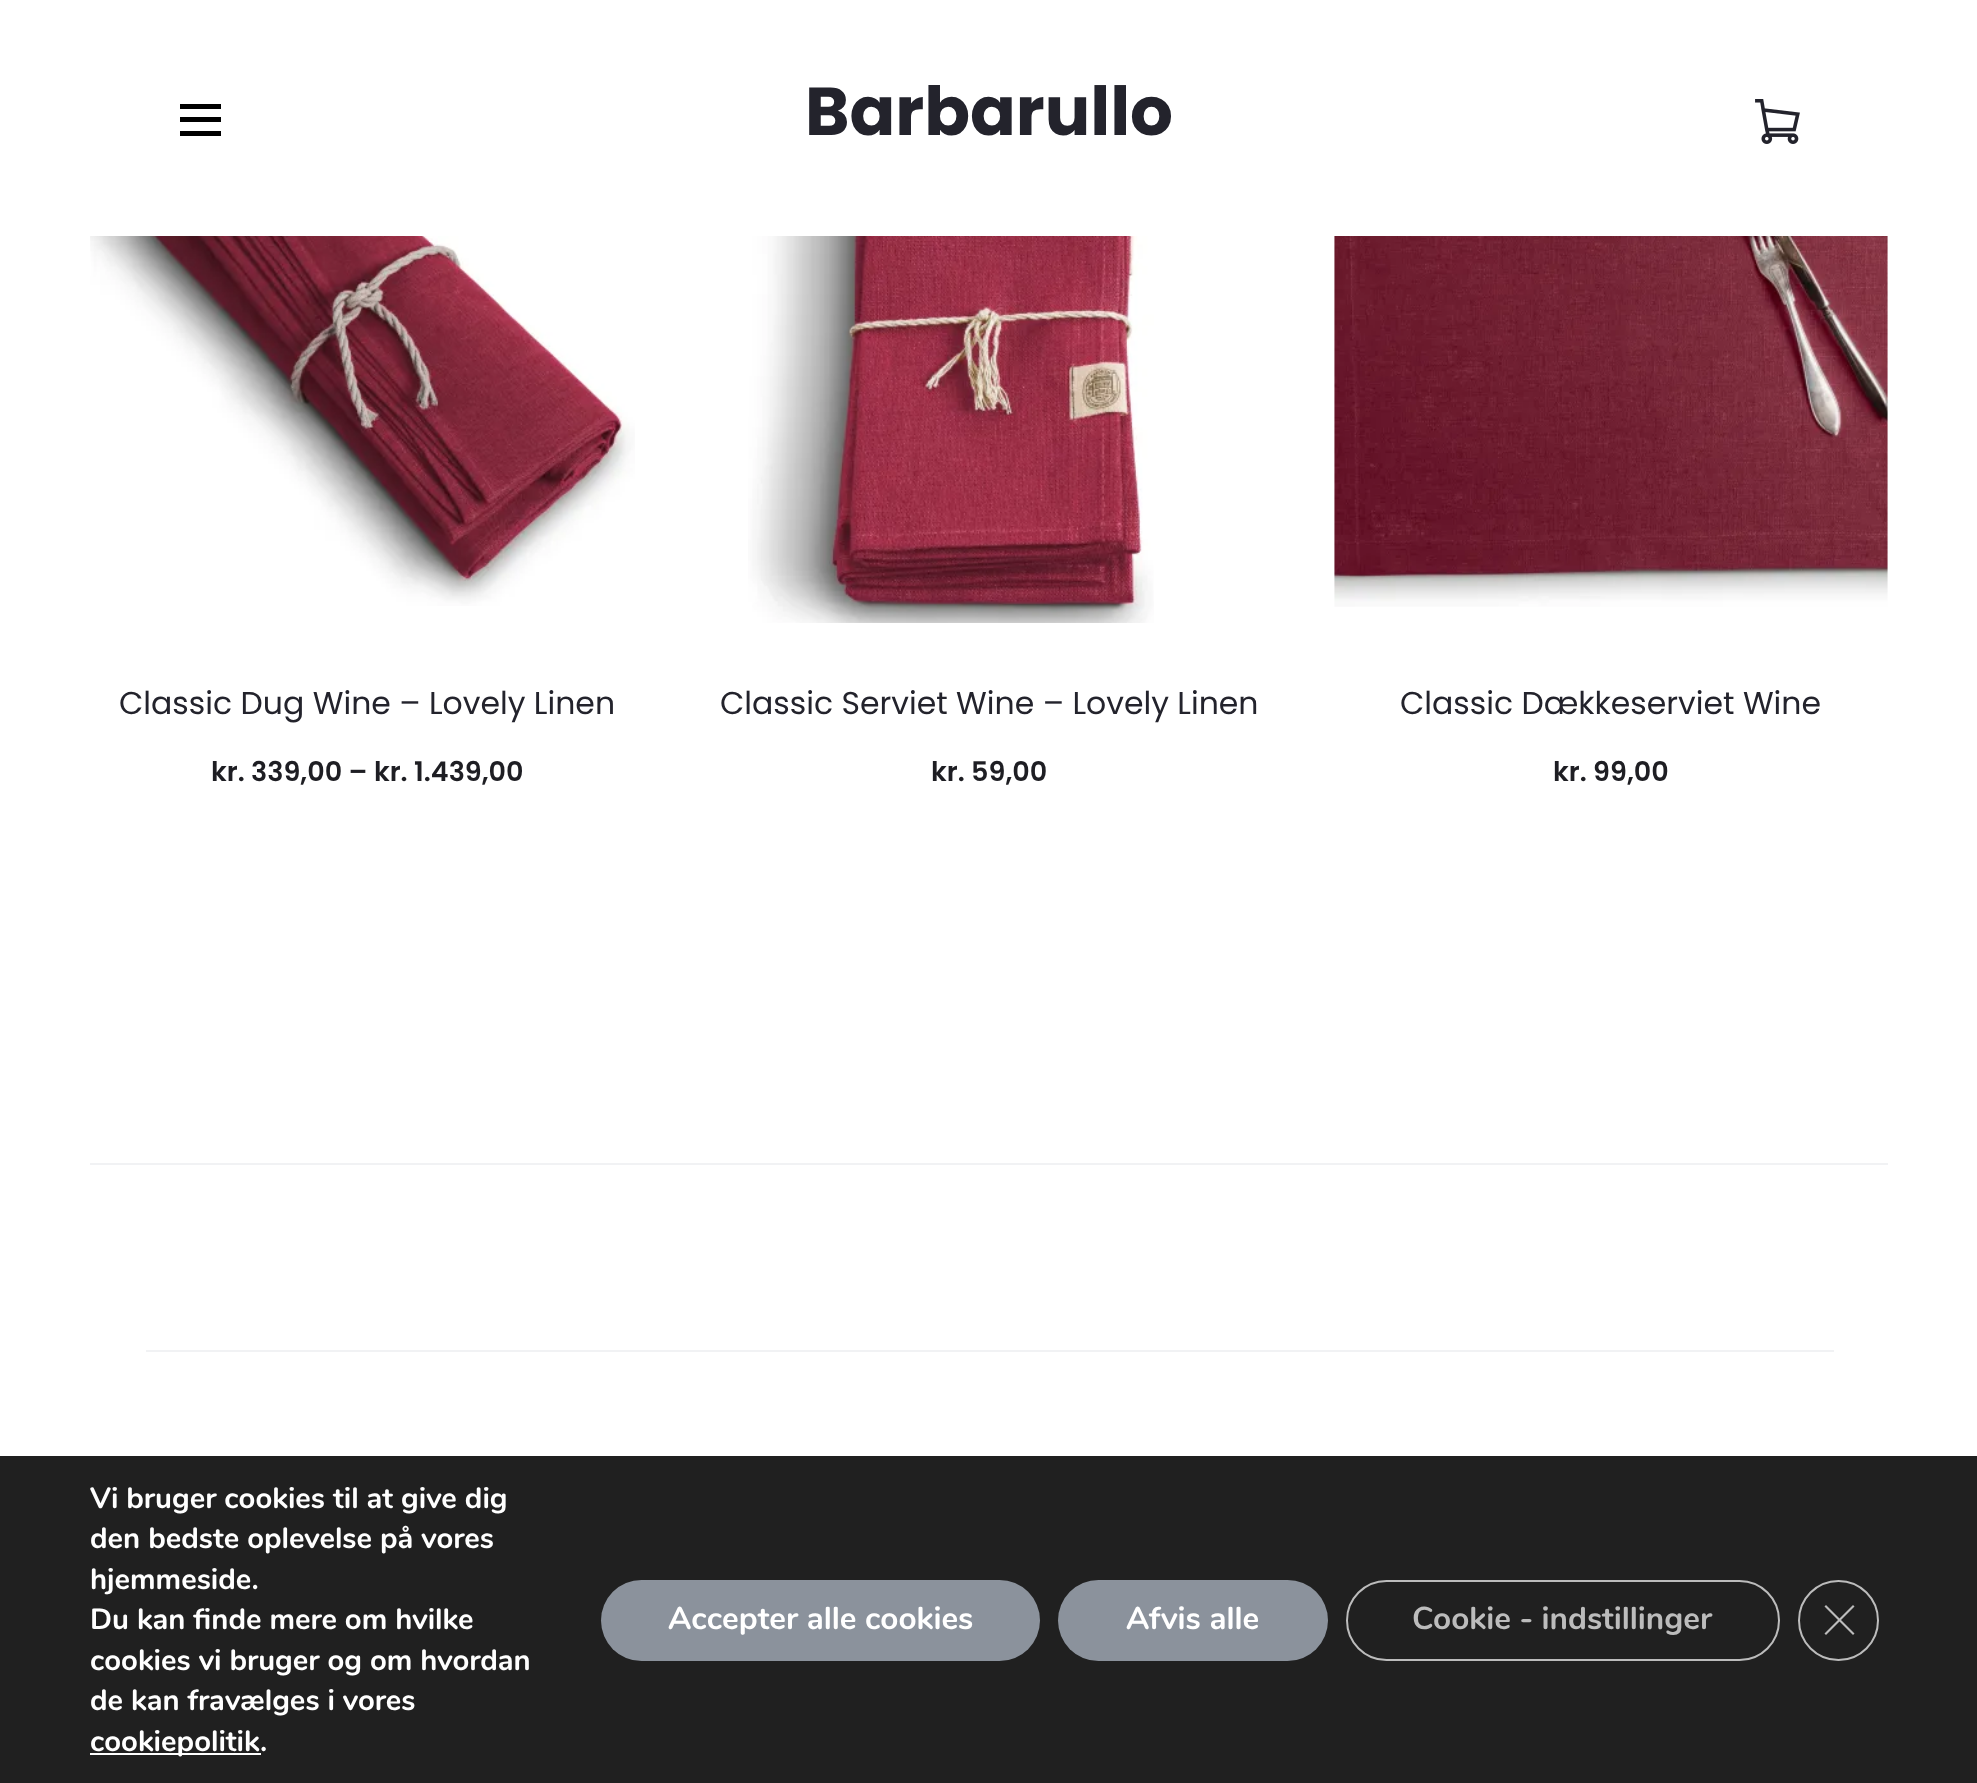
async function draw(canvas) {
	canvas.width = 1977;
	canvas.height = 1783;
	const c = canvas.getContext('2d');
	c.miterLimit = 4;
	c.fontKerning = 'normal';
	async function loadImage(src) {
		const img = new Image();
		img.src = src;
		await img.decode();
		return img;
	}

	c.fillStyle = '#fff';
	c.fillRect(0, 0, 1977, 1783);
	for (const [x, y, w, h, color] of [
		[180, 117, 41, 5, '#000'],
		[180, 104, 41, 5, '#000'],
		[180, 131, 41, 5, '#000'],
	]) {
		c.fillStyle = color;
		c.fillRect(x, y, w, h);
	}
	c.font = 'bold 67.5px Poppins';
	c.fillStyle = '#23232c';
	c.fillText('Barbarullo', 805, 135);
	c.drawImage(await loadImage('img1.png'), 1755, 99, 45, 45);
	c.drawImage(await loadImage('img2.png'), 90, 236, 545, 370);
	c.font = '31.5px Poppins';
	c.fillText('Classic Dug Wine – Lovely Linen', 119, 714);
	c.font = '600 27px Poppins';
	c.fillStyle = '#1e1e23';
	c.fillText('kr. 339,00 – kr. 1.439,00', 211, 781);
	c.drawImage(await loadImage('img3.png'), 748, 236, 406, 387);
	c.font = '31.5px Poppins';
	c.fillStyle = '#23232c';
	c.fillText('Classic Serviet Wine – Lovely Linen', 720, 714);
	c.font = '600 27px Poppins';
	c.fillStyle = '#1e1e23';
	c.fillText('kr. 59,00', 931, 781);
	c.drawImage(await loadImage('img4.png'), 1334, 236, 554, 371);
	c.font = '31.5px Poppins';
	c.fillStyle = '#23232c';
	c.fillText('Classic Dækkeserviet Wine', 1400, 714);
	c.font = '600 27px Poppins';
	c.fillStyle = '#1e1e23';
	c.fillText('kr. 99,00', 1553, 781);
	for (const [x, y, w, h, color] of [
		[90, 1163, 1798, 2, '#f1f2f4'],
		[146, 1350, 1688, 2, '#f1f2f4'],
		[0, 1456, 1977, 327, '#202020'],
	]) {
		c.fillStyle = color;
		c.fillRect(x, y, w, h);
	}
	c.font = 'bold 29.25px Nunito';
	c.fillStyle = '#fff';
	for (const [text, x, y] of [
		['Vi bruger cookies til at give dig', 90, 1508],
		['den bedste oplevelse på vores', 90, 1548],
		['hjemmeside.', 90, 1589],
		['Du kan finde mere om hvilke', 90, 1629],
		['cookies vi bruger og om hvordan', 90, 1670],
		['de kan fravælges i vores', 90, 1710],
	]) {
		c.fillText(text, x, y);
	}
	c.fillRect(90, 1753, 171, 2);
	c.fillText('cookiepolitik', 90, 1751);
	c.fillText('.', 260, 1751);
	c.fillStyle = '#8b929c';
	c.beginPath();
	c.roundRect(601, 1580, 439, 81, 40.5);
	c.fill();
	c.font = 'bold 31.5px Nunito';
	c.fillStyle = '#fff';
	c.fillText('Accepter alle cookies', 668, 1629);
	c.fillStyle = '#8b929c';
	c.beginPath();
	c.roundRect(1058, 1580, 270, 81, 40.5);
	c.fill();
	c.fillStyle = '#fff';
	c.fillText('Afvis alle', 1126, 1629);
	c.beginPath();
	c.roundRect(1347, 1581, 432, 79, 39.5);
	c.strokeStyle = '#bcbcbc';
	c.lineWidth = 2;
	c.stroke();
	c.fillStyle = '#bcbcbc';
	c.fillText('Cookie - indstillinger', 1412, 1629);
	c.beginPath();
	c.arc(1838.5, 1620.5, 39.5, 0, 2 * Math.PI);
	c.stroke();
	c.beginPath();
	c.moveTo(1853, 1605);
	c.lineTo(1854.5, 1606.5);
	c.lineTo(1826, 1635);
	c.lineTo(1824.5, 1633.5);
	c.closePath();
	c.fill();
	c.beginPath();
	c.moveTo(1824.5, 1606.5);
	c.lineTo(1826, 1605);
	c.lineTo(1854.5, 1633.5);
	c.lineTo(1853, 1635);
	c.closePath();
	c.fill();
}

draw(document.querySelector('canvas'));
